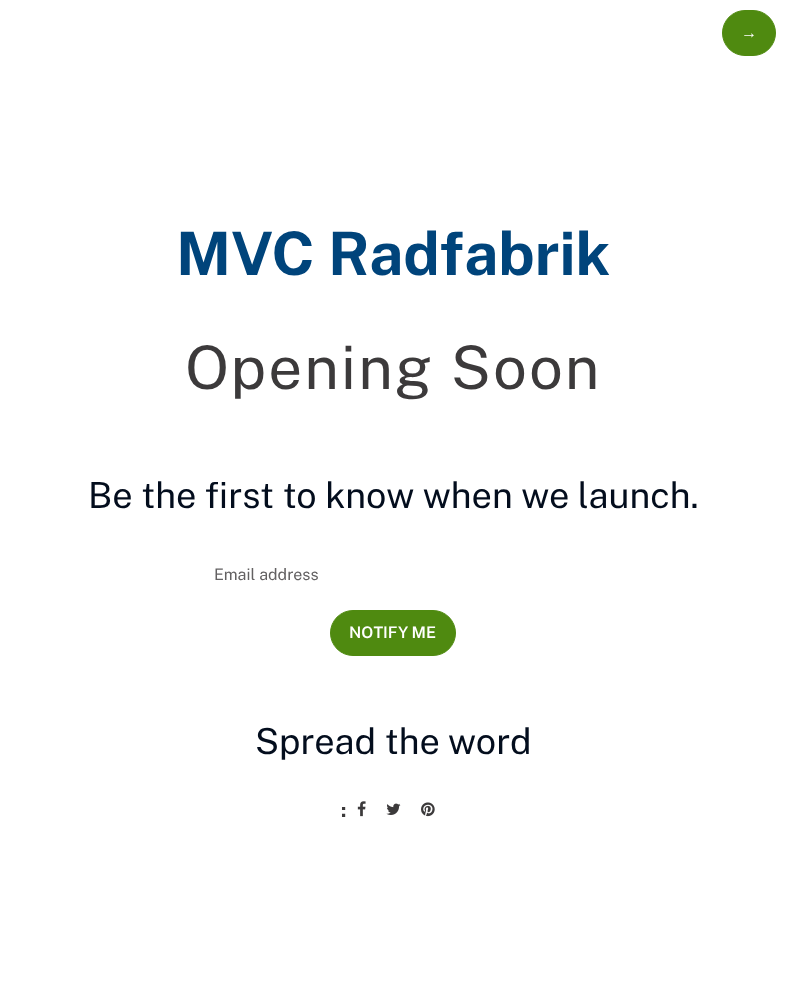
async function draw(canvas) {
	canvas.width = 786;
	canvas.height = 1006;
	const c = canvas.getContext('2d');
	c.miterLimit = 4;
	c.fontKerning = 'normal';
	async function loadImage(src) {
		const img = new Image();
		img.src = src;
		await img.decode();
		return img;
	}

	c.fillStyle = '#fff';
	c.fillRect(0, 0, 786, 1006);
	c.fillStyle = '#4f8a10';
	c.beginPath();
	c.roundRect(722.5, 10.5, 53, 45, 22.5);
	c.fill();
	c.strokeStyle = '#4f8a10';
	c.stroke();
	c.font = 'bold 16px Liberation Sans';
	c.fillStyle = '#fff';
	c.fillText('→', 741, 38);
	c.font = 'bold 60px Public Sans';
	c.fillStyle = '#00447b';
	c.fillText('MVC Radfabrik', 176, 275);
	c.letterSpacing = '2px';
	c.font = '60px Public Sans';
	c.fillStyle = '#3c3a3b';
	c.fillText('Opening Soon', 185, 389);
	c.letterSpacing = '0px';
	c.font = '36px Public Sans';
	c.fillStyle = '#030d1d';
	c.fillText('Be the first to know when we launch.', 88, 508);
	c.font = '16px Public Sans';
	c.fillStyle = '#636162';
	c.fillText('Email address', 214, 580);
	c.fillStyle = '#4f8a10';
	c.beginPath();
	c.roundRect(330.5, 610.5, 125, 45, 22.5);
	c.fill();
	c.stroke();
	c.font = '600 16px Public Sans';
	c.fillStyle = '#fff';
	c.fillText('NOTIFY ME', 349, 638);
	c.font = '36px Public Sans';
	c.fillStyle = '#030d1d';
	c.fillText('Spread the word', 255, 754);
	c.font = 'bold 20px Public Sans';
	c.fillStyle = '#3c3a3b';
	c.fillText(':', 341, 817);
	c.drawImage(await loadImage('img1.png'), 357, 801, 9, 16);
	c.drawImage(await loadImage('img2.png'), 386, 803, 15, 12);
	c.drawImage(await loadImage('img3.png'), 421, 802, 14, 15);
}

draw(document.querySelector('canvas'));
